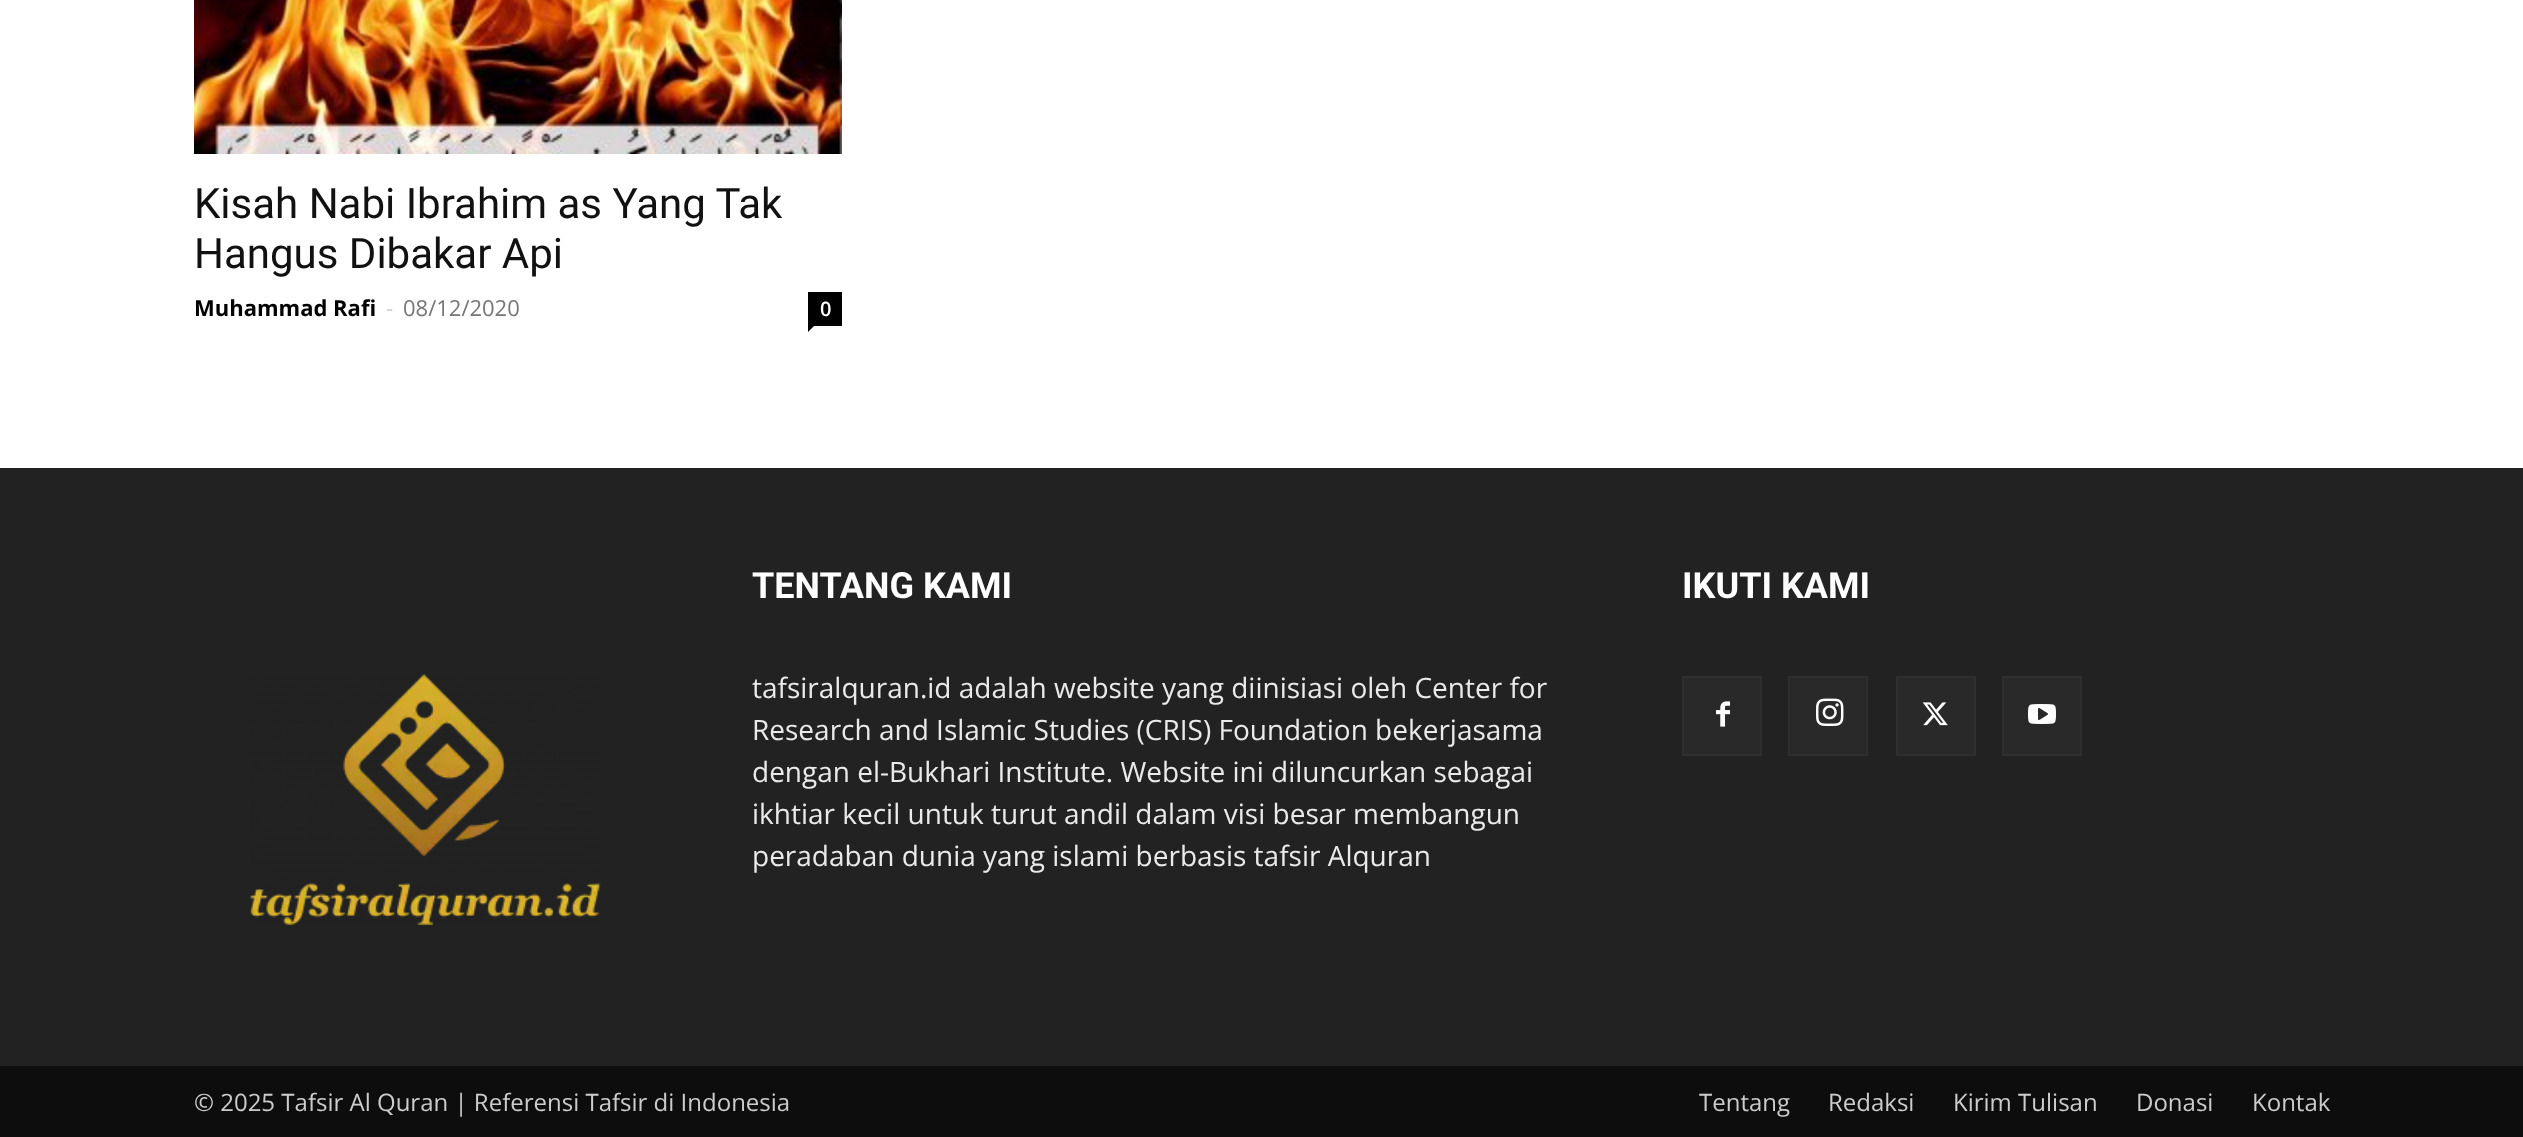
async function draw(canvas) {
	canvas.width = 2523;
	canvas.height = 1137;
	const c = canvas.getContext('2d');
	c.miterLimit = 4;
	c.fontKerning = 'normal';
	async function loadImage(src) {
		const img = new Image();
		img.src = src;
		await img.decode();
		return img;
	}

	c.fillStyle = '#fff';
	c.fillRect(0, 0, 2523, 1137);
	c.drawImage(await loadImage('img1.png'), 194, 0, 648, 154);
	c.font = '42px Roboto';
	c.fillStyle = '#111';
	c.fillText('Kisah Nabi Ibrahim as Yang Tak', 194, 218);
	c.fillText('Hangus Dibakar Api', 194, 268);
	c.font = 'bold 22px Open Sans';
	c.fillStyle = '#000';
	c.fillText('Muhammad Rafi', 194, 316);
	c.font = '22px Open Sans';
	c.fillStyle = '#ccc';
	c.fillText('-', 386, 316);
	c.fillStyle = '#767676';
	c.fillText('08/12/2020', 403, 316);
	c.fillStyle = '#000';
	c.fillRect(808, 292, 34, 34);
	c.font = '600 20px Open Sans';
	c.fillStyle = '#fff';
	c.fillText('0', 820, 316);
	c.fillStyle = '#000';
	c.beginPath();
	c.moveTo(808, 326);
	c.lineTo(814, 326);
	c.lineTo(808, 332);
	c.closePath();
	c.fill();
	c.fillStyle = '#222';
	c.fillRect(0, 468, 2523, 598);
	c.font = 'bold 36px Roboto';
	c.fillStyle = '#fff';
	c.fillText('TENTANG KAMI', 752, 598);
	c.font = '28px Open Sans';
	c.fillStyle = '#eaeaea';
	for (const [text, x, y] of [
		['tafsiralquran.id adalah website yang diinisiasi oleh Center for', 752, 698],
		['Research and Islamic Studies (CRIS) Foundation bekerjasama', 752, 740],
		['dengan el-Bukhari Institute. Website ini diluncurkan sebagai', 752, 782],
		['ikhtiar kecil untuk turut andil dalam visi besar membangun', 752, 824],
		['peradaban dunia yang islami berbasis tafsir Alquran', 752, 866],
	]) {
		c.fillText(text, x, y);
	}
	c.font = 'bold 36px Roboto';
	c.fillStyle = '#fff';
	c.fillText('IKUTI KAMI', 1682, 598);
	c.fillStyle = '#292929';
	c.fillRect(1684, 678, 76, 76);
	c.drawImage(await loadImage('img2.png'), 1716, 701, 14, 26);
	c.strokeStyle = '#2f2f2f';
	c.lineWidth = 2;
	c.strokeRect(1683, 677, 78, 78);
	c.fillRect(1790, 678, 76, 76);
	c.drawImage(await loadImage('img3.png'), 1816, 698, 28, 28);
	c.strokeRect(1789, 677, 78, 78);
	c.fillRect(1898, 678, 76, 76);
	c.drawImage(await loadImage('img4.png'), 1922, 702, 26, 24);
	c.strokeRect(1897, 677, 78, 78);
	c.fillRect(2004, 678, 76, 76);
	c.drawImage(await loadImage('img5.png'), 2028, 704, 28, 20);
	c.strokeRect(2003, 677, 78, 78);
	c.drawImage(await loadImage('img6.png'), 249, 674, 352, 252);
	c.fillStyle = '#0d0d0d';
	c.fillRect(0, 1066, 2523, 71);
	c.font = '24px Open Sans';
	c.fillStyle = '#ccc';
	for (const [text, x, y] of [
		['© 2025 Tafsir Al Quran | Referensi Tafsir di Indonesia', 194, 1111],
		['Tentang', 1699, 1111],
		['Redaksi', 1828, 1111],
		['Kirim Tulisan', 1953, 1111],
		['Donasi', 2136, 1111],
		['Kontak', 2252, 1111],
	]) {
		c.fillText(text, x, y);
	}
}

draw(document.querySelector('canvas'));
